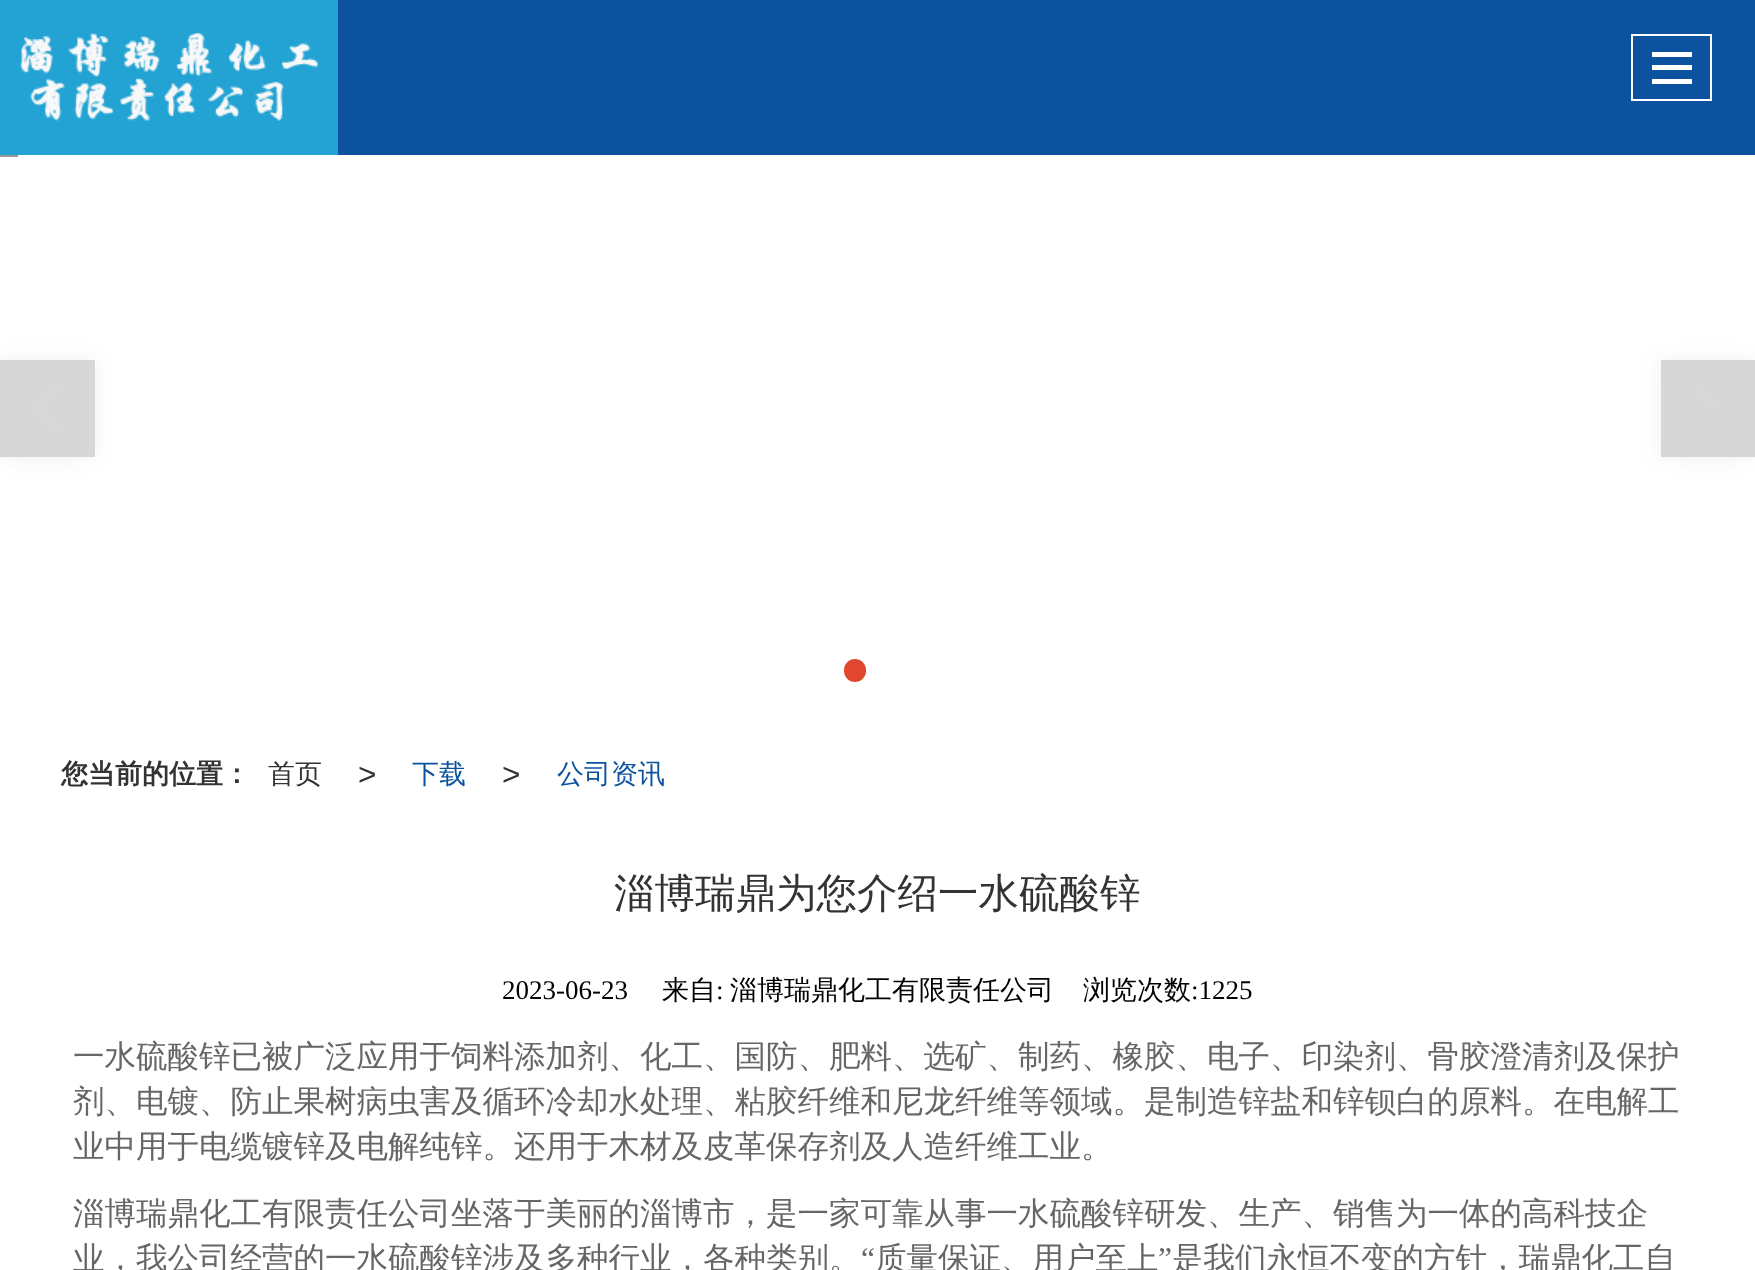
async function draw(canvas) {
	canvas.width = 1755;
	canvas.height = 1270;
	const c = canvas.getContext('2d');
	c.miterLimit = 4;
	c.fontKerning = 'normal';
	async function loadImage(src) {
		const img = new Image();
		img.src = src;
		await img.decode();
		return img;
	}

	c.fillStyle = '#fff';
	c.fillRect(0, 0, 1755, 1270);
	c.fillStyle = '#0c529e';
	c.fillRect(338, 0, 1417, 155);
	c.fillStyle = '#23a3d3';
	c.fillRect(0, 0, 338, 155);
	c.drawImage(await loadImage('img1.png'), 20, 33, 298, 88);
	c.strokeStyle = '#fff';
	c.lineWidth = 2;
	c.strokeRect(1632, 35, 79, 65);
	for (const [x, y, w, h, color] of [
		[1652, 52, 40, 5, '#fff'],
		[1652, 65, 40, 5, '#fff'],
		[1652, 79, 40, 5, '#fff'],
		[0, 155, 18, 2, '#999'],
	]) {
		c.fillStyle = color;
		c.fillRect(x, y, w, h);
	}
	c.fillStyle = '#cccccc4d';
	c.filter = 'blur(11px)';
	c.beginPath();
	c.rect(0, 360, 95, 97);
	c.fill();
	c.filter = 'none';
	c.fillStyle = '#d7d7d7';
	c.fillRect(0, 360, 95, 97);
	c.drawImage(await loadImage('img2.png'), 37, 388, 21, 41);
	c.fillStyle = '#cccccc4d';
	c.filter = 'blur(11px)';
	c.beginPath();
	c.rect(1661, 360, 94, 97);
	c.fill();
	c.filter = 'none';
	c.fillStyle = '#d7d7d7';
	c.fillRect(1661, 360, 94, 97);
	c.drawImage(await loadImage('img3.png'), 1697, 388, 22, 21);
	c.fillStyle = '#e1472f';
	c.beginPath();
	c.roundRect(844, 659, 22, 23, 11);
	c.fill();
	c.font = 'bold 27px WenQuanYi Zen Hei';
	c.fillStyle = '#333';
	c.fillText('您当前的位置：', 61, 783);
	c.font = '500 27px WenQuanYi Zen Hei';
	c.fillText('首页', 268, 783);
	c.font = '31.5px Liberation Sans';
	c.fillText('>', 358, 785);
	c.font = '500 27px WenQuanYi Zen Hei';
	c.fillStyle = '#0c529e';
	c.fillText('下载', 412, 783);
	c.font = '31.5px Liberation Sans';
	c.fillStyle = '#333';
	c.fillText('>', 502, 785);
	c.font = '500 27px WenQuanYi Zen Hei';
	c.fillStyle = '#0c529e';
	c.fillText('公司资讯', 557, 783);
	c.font = '500 40.5px WenQuanYi Zen Hei';
	c.fillStyle = '#333';
	c.fillText('淄博瑞鼎为您介绍一水硫酸锌', 614, 907);
	c.font = '27px Liberation Serif';
	c.fillStyle = '#000';
	c.fillText('2023-06-23', 502, 999);
	c.font = '500 27px WenQuanYi Zen Hei';
	c.fillText('来自', 662, 999);
	c.font = '27px Liberation Serif';
	c.fillText(':', 716, 999);
	c.font = '500 27px WenQuanYi Zen Hei';
	c.fillText('淄博瑞鼎化工有限责任公司', 730, 999);
	c.fillText('浏览次数', 1083, 999);
	c.font = '27px Liberation Serif';
	c.fillText(':1225', 1191, 999);
	c.font = '500 31.5px WenQuanYi Zen Hei';
	c.fillStyle = '#666';
	for (const [text, x, y] of [
		['一水硫酸锌已被广泛应用于饲料添加剂、化工、国防、肥料、选矿、制药、橡胶、电子、印染剂、骨胶澄清剂及保护', 73, 1067],
		['剂、电镀、防止果树病虫害及循环冷却水处理、粘胶纤维和尼龙纤维等领域。是制造锌盐和锌钡白的原料。在电解工', 73, 1112],
		['业中用于电缆镀锌及电解纯锌。还用于木材及皮革保存剂及人造纤维工业。', 73, 1157],
		['淄博瑞鼎化工有限责任公司坐落于美丽的淄博市，是一家可靠从事一水硫酸锌研发、生产、销售为一体的高科技企', 73, 1224],
		['业，我公司经营的一水硫酸锌涉及多种行业，各种类别。', 73, 1269],
	]) {
		c.fillText(text, x, y);
	}
	c.font = '31.5px Liberation Serif';
	c.fillText('“', 861, 1269);
	c.font = '500 31.5px WenQuanYi Zen Hei';
	c.fillText('质量保证、用户至上', 875, 1269);
	c.font = '31.5px Liberation Serif';
	c.fillText('”', 1158, 1269);
	c.font = '500 31.5px WenQuanYi Zen Hei';
	c.fillText('是我们永恒不变的方针，瑞鼎化工自', 1172, 1269);
}

draw(document.querySelector('canvas'));
